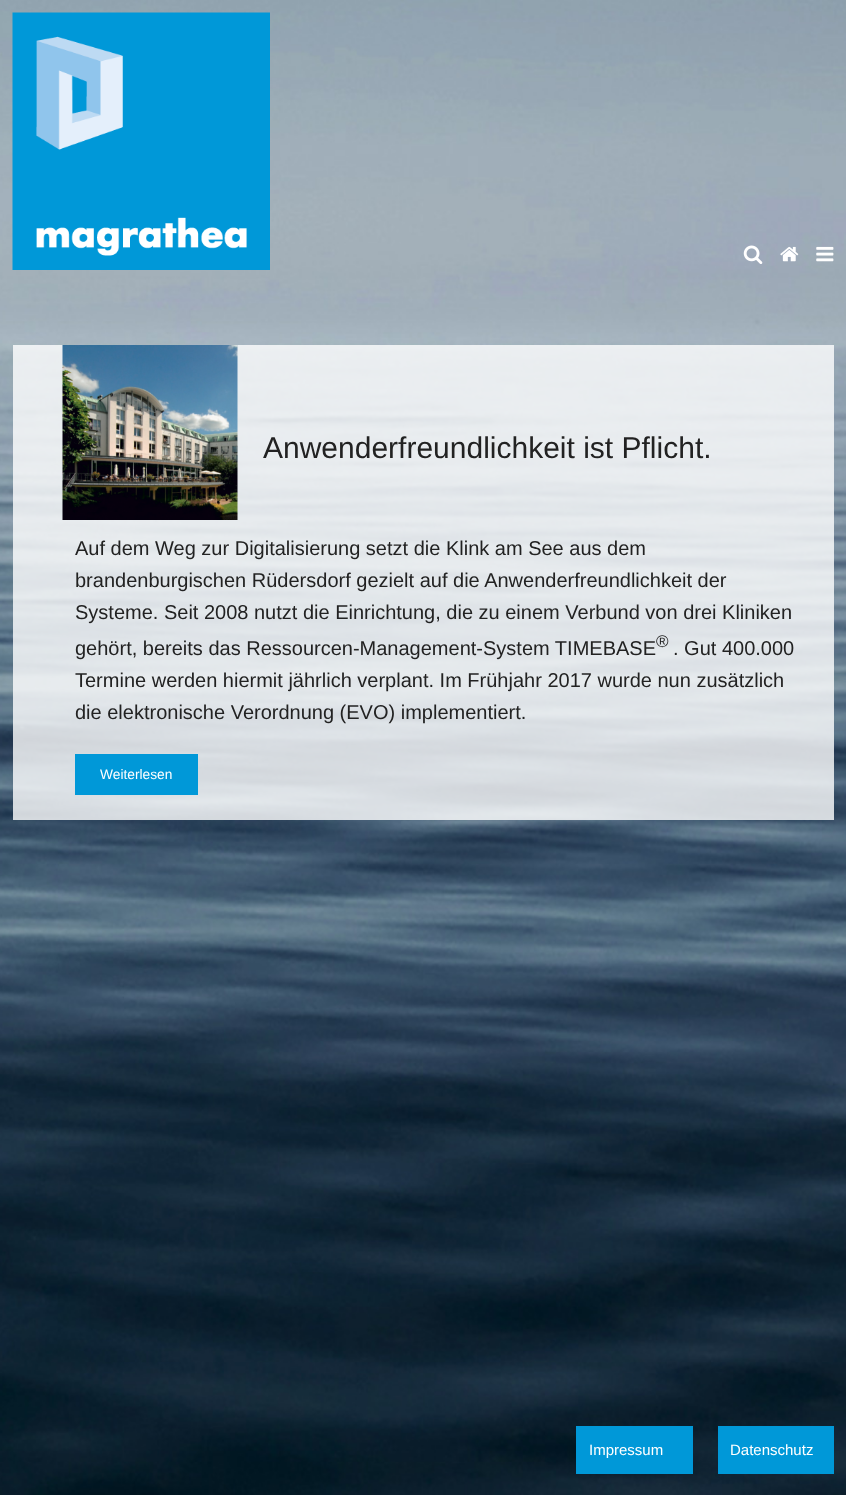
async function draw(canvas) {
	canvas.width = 846;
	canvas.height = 1495;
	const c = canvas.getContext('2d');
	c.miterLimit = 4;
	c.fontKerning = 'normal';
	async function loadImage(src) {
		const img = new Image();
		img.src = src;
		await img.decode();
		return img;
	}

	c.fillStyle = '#fff';
	c.fillRect(0, 0, 846, 1495);
	c.drawImage(await loadImage('img1.png'), 0, 0, 846, 1495);
	c.drawImage(await loadImage('img2.png'), 12, 12, 258, 258);
	c.drawImage(await loadImage('img3.png'), 743, 245, 20, 19);
	c.drawImage(await loadImage('img4.png'), 780, 246, 19, 16);
	c.drawImage(await loadImage('img5.png'), 816, 246, 18, 16);
	c.fillStyle = '#ffffffcc';
	c.fillRect(13, 345, 821, 475);
	c.drawImage(await loadImage('img6.png'), 62, 345, 176, 175);
	c.font = '30px Liberation Sans';
	c.fillStyle = '#222';
	c.fillText('Anwenderfreundlichkeit ist Pflicht.', 263, 458);
	c.font = '20px Liberation Sans';
	for (const [text, x, y] of [
		['Auf dem Weg zur Digitalisierung setzt die Klink am See aus dem', 75, 555],
		['brandenburgischen Rüdersdorf gezielt auf die Anwenderfreundlichkeit der', 75, 587],
		['Systeme. Seit 2008 nutzt die Einrichtung, die zu einem Verbund von drei Kliniken', 75, 619],
		['gehört, bereits das Ressourcen-Management-System TIMEBASE', 75, 655],
	]) {
		c.fillText(text, x, y);
	}
	c.font = '17px Liberation Sans';
	c.fillText('®', 656, 647);
	c.font = '20px Liberation Sans';
	for (const [text, x, y] of [
		['. Gut 400.000', 673, 655],
		['Termine werden hiermit jährlich verplant. Im Frühjahr 2017 wurde nun zusätzlich', 75, 687],
		['die elektronische Verordnung (EVO) implementiert.', 75, 719],
	]) {
		c.fillText(text, x, y);
	}
	c.fillStyle = '#0098d8';
	c.fillRect(75, 754, 123, 41);
	c.font = '13.75px Liberation Sans';
	c.fillStyle = '#fff';
	c.fillText('Weiterlesen', 100, 779);
	c.fillStyle = '#0098d8';
	c.fillRect(576, 1426, 117, 48);
	c.font = '15px Liberation Sans';
	c.fillStyle = '#fff';
	c.fillText('Impressum', 589, 1455);
	c.fillStyle = '#0098d8';
	c.fillRect(718, 1426, 116, 48);
	c.fillStyle = '#fff';
	c.fillText('Datenschutz', 730, 1455);
}

draw(document.querySelector('canvas'));
